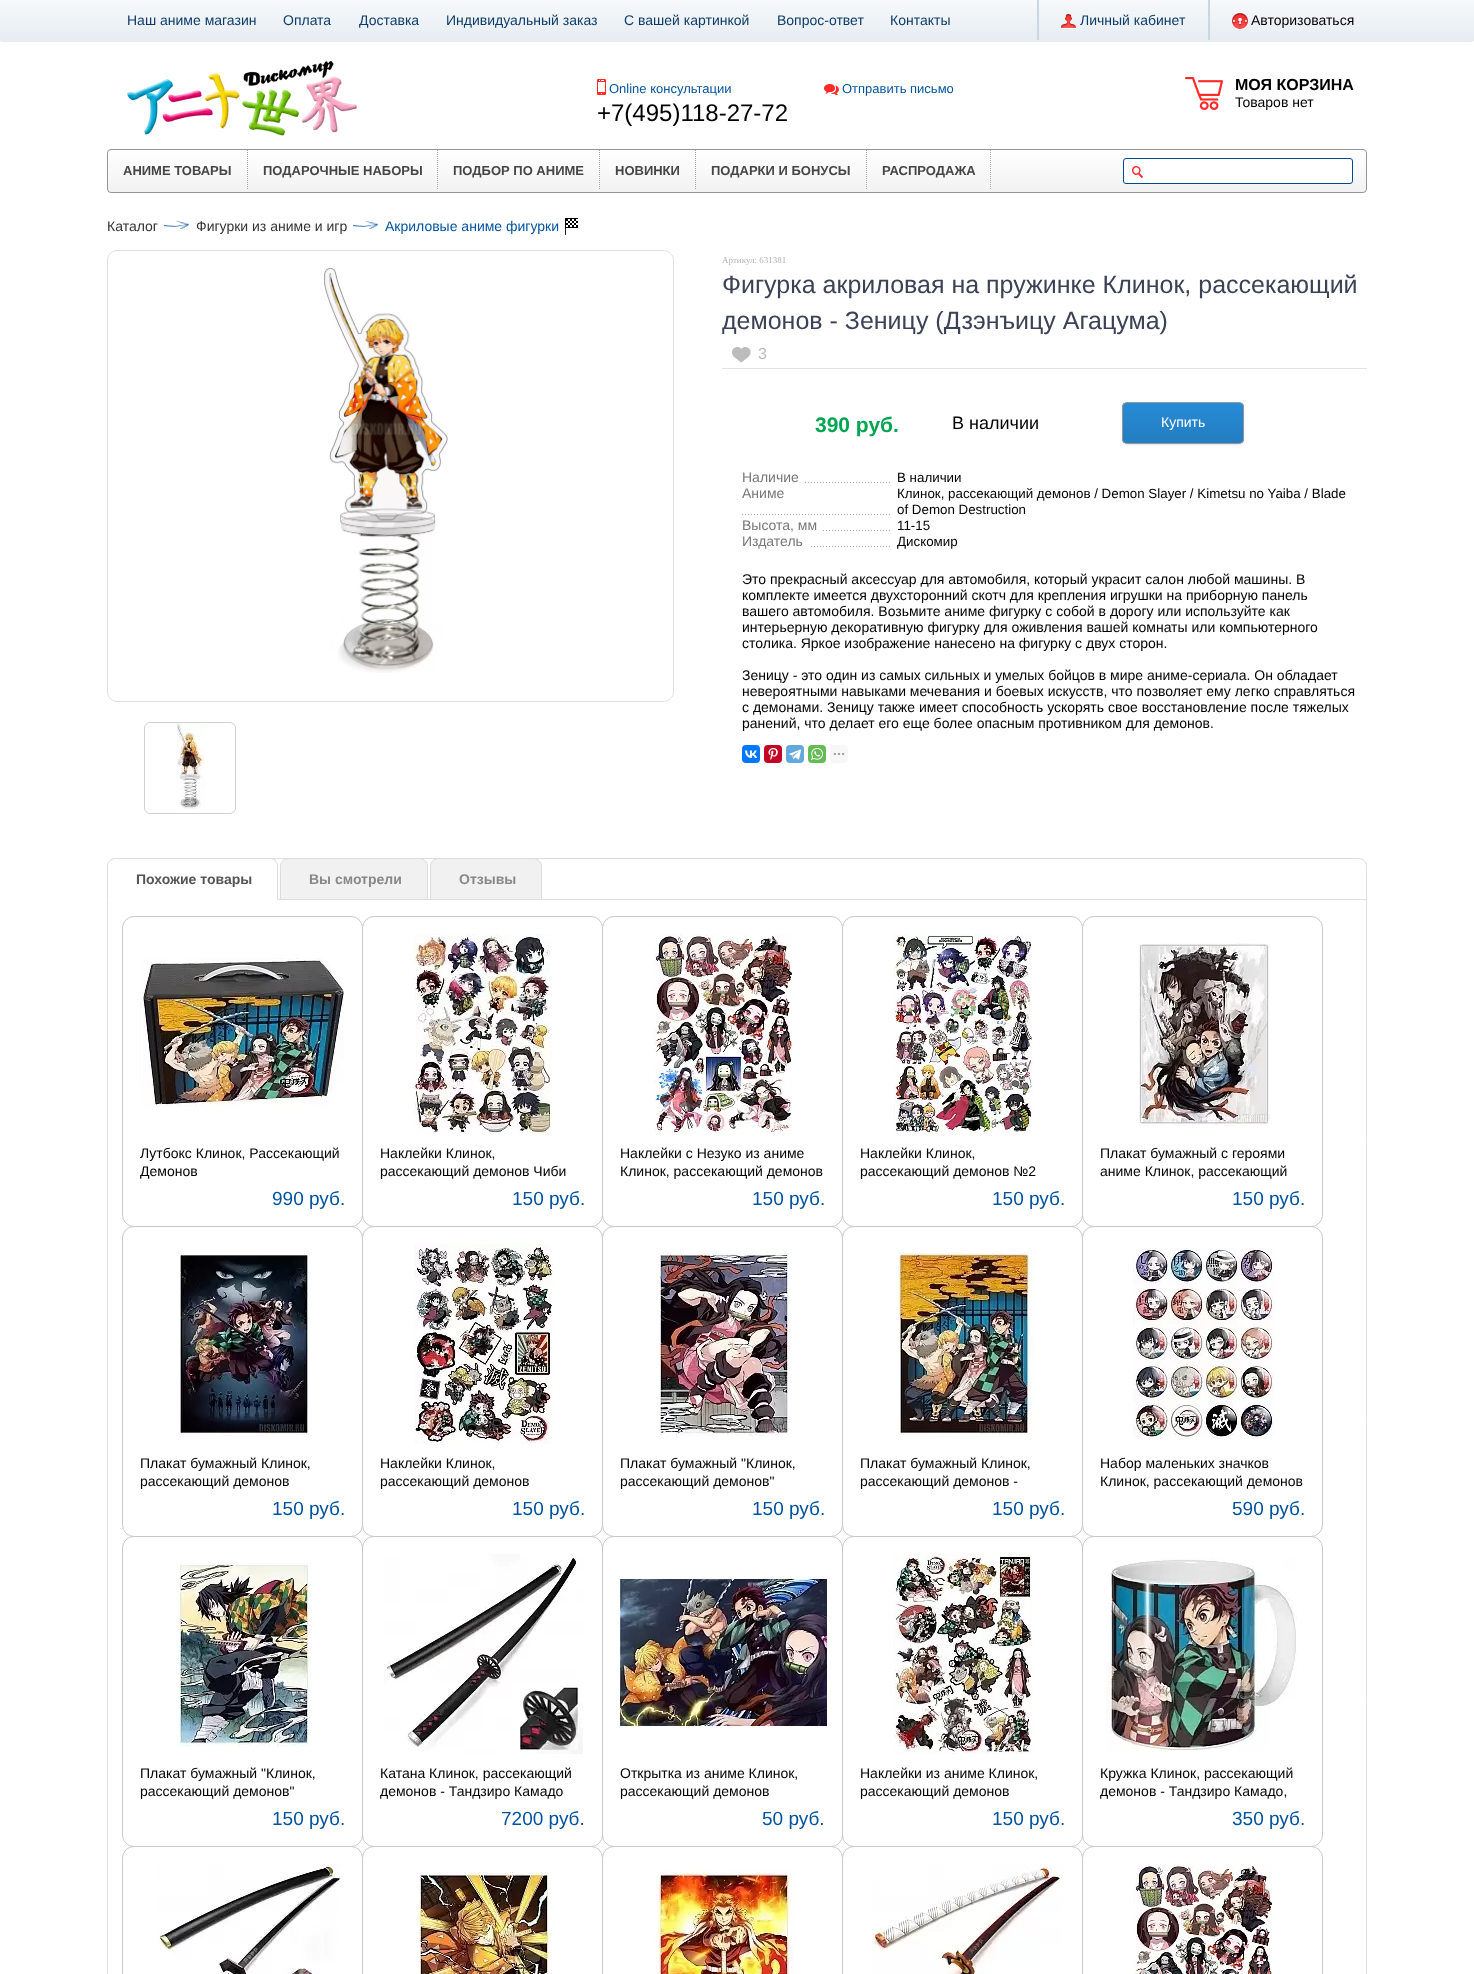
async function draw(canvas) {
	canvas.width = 1474;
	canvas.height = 1974;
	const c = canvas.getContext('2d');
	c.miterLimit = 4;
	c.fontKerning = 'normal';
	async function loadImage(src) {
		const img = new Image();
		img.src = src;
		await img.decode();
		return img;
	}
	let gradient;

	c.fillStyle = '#fff';
	c.fillRect(0, 0, 1474, 1974);
	c.fillStyle = '#000';
	c.filter = 'blur(1px)';
	c.beginPath();
	c.rect(1, 1, 1472, 39);
	c.fill();
	c.filter = 'none';
	gradient = c.createLinearGradient(737, 0, 737, 41);
	gradient.addColorStop(0, '#f7f9fb');
	gradient.addColorStop(1, '#e6ecf2');
	c.fillStyle = gradient;
	c.fillRect(0, 0, 1474, 41);
	c.font = '14px Liberation Sans';
	c.fillStyle = '#0d3c68';
	for (const [text, x, y] of [
		['Наш аниме магазин', 127, 25],
		['Оплата', 283, 25],
		['Доставка', 359, 25],
		['Индивидуальный заказ', 446, 25],
		['С вашей картинкой', 624, 25],
		['Вопрос-ответ', 777, 25],
		['Контакты', 890, 25],
	]) {
		c.fillText(text, x, y);
	}
	c.fillStyle = '#c8d7e6';
	c.fillRect(1037, 0, 2, 40);
	c.drawImage(await loadImage('img1.png'), 1061, 13, 15, 16);
	c.fillStyle = '#0d3c68';
	c.fillText('Личный кабинет', 1080, 25);
	c.fillStyle = '#c8d7e6';
	c.fillRect(1208, 0, 2, 40);
	c.drawImage(await loadImage('img2.png'), 1232, 13, 16, 17);
	c.fillStyle = '#000';
	c.fillText('Авторизоваться', 1251, 25);
	c.drawImage(await loadImage('img3.png'), 127, 61, 230, 75);
	c.drawImage(await loadImage('img4.png'), 597, 79, 9, 16);
	c.font = '13px Liberation Sans';
	c.fillStyle = '#00529f';
	c.fillText('Online консультации', 609, 93);
	c.font = '24px Liberation Sans';
	c.fillStyle = '#000';
	c.fillText('+7(495)118-27-72', 597, 121);
	c.drawImage(await loadImage('img5.png'), 824, 84, 15, 11);
	c.font = '13px Liberation Sans';
	c.fillStyle = '#00529f';
	c.fillText('Отправить письмо', 842, 93);
	c.drawImage(await loadImage('img6.png'), 1185, 77, 38, 33);
	c.font = 'bold 16px Liberation Sans';
	c.fillStyle = '#000';
	c.fillText('МОЯ КОРЗИНА', 1235, 90);
	c.font = '14px Liberation Sans';
	c.fillText('Товаров нет', 1235, 107);
	c.save();
	c.beginPath();
	c.roundRect(107, 149, 1260, 44, 4);
	c.clip();
	gradient = c.createLinearGradient(737, 150, 737, 192);
	gradient.addColorStop(0, '#fff');
	gradient.addColorStop(1, '#f2f2f2');
	c.fillStyle = gradient;
	c.fillRect(107, 150, 1260, 42);
	c.restore();
	c.beginPath();
	c.roundRect(107.5, 149.5, 1259, 43, 3.5);
	c.strokeStyle = '#959595';
	c.stroke();
	c.beginPath();
	c.moveTo(247.5, 150);
	c.lineTo(247.5, 190);
	c.strokeStyle = '#a6a6a6';
	c.setLineDash([1, 1]);
	c.stroke();
	c.font = 'bold 13px Liberation Sans';
	c.fillStyle = '#464646';
	c.fillText('АНИМЕ ТОВАРЫ', 123, 175);
	c.beginPath();
	c.moveTo(437.5, 150);
	c.lineTo(437.5, 190);
	c.stroke();
	c.fillText('ПОДАРОЧНЫЕ НАБОРЫ', 263, 175);
	c.beginPath();
	c.moveTo(599.5, 150);
	c.lineTo(599.5, 190);
	c.stroke();
	c.fillText('ПОДБОР ПО АНИМЕ', 453, 175);
	c.beginPath();
	c.moveTo(695.5, 150);
	c.lineTo(695.5, 190);
	c.stroke();
	c.fillText('НОВИНКИ', 615, 175);
	c.beginPath();
	c.moveTo(866.5, 150);
	c.lineTo(866.5, 190);
	c.stroke();
	c.fillText('ПОДАРКИ И БОНУСЫ', 711, 175);
	c.beginPath();
	c.moveTo(990.5, 150);
	c.lineTo(990.5, 190);
	c.stroke();
	c.fillText('РАСПРОДАЖА', 882, 175);
	c.fillStyle = '#fff';
	c.beginPath();
	c.roundRect(1123.5, 158.5, 229, 25, 2.5);
	c.fill();
	c.strokeStyle = '#004a90';
	c.setLineDash([]);
	c.stroke();
	c.drawImage(await loadImage('img7.png'), 1132, 166, 11, 12);
	c.font = '14px Liberation Sans';
	c.fillStyle = '#333';
	c.fillText('Каталог', 107, 231);
	c.drawImage(await loadImage('img8.png'), 164, 221, 25, 8);
	c.fillText('Фигурки из аниме и игр', 196, 231);
	c.drawImage(await loadImage('img8.png'), 353, 221, 25, 8);
	c.fillStyle = '#00529f';
	c.fillText('Акриловые аниме фигурки', 385, 231);
	c.drawImage(await loadImage('img9.png'), 565, 218, 13, 17);
	c.beginPath();
	c.roundRect(107.5, 250.5, 566, 451, 9.5);
	c.strokeStyle = '#e1e1e1';
	c.stroke();
	c.drawImage(await loadImage('img10.png'), 324, 268, 124, 405);
	c.beginPath();
	c.roundRect(144.5, 722.5, 91, 91, 5.5);
	c.strokeStyle = '#d1d1d1';
	c.stroke();
	c.drawImage(await loadImage('img11.png'), 176, 723, 29, 86);
	c.fillStyle = '#e3e3e3';
	c.fillRect(722, 368, 645, 1);
	c.font = '9px Liberation Serif';
	c.fillStyle = '#b3b3b3';
	c.fillText('Артикул: 631381', 722, 263);
	c.font = '25px Liberation Sans';
	c.fillStyle = '#3b4255';
	c.fillText('Фигурка акриловая на пружинке Клинок, рассекающий', 722, 293);
	c.fillText('демонов - Зеницу (Дзэнъицу Агацума)', 722, 329);
	c.drawImage(await loadImage('img12.png'), 732, 347, 19, 16);
	c.font = '16px Liberation Sans';
	c.fillStyle = '#bcbcbc';
	c.fillText('3', 758, 359);
	c.font = 'bold 21px Liberation Sans';
	c.fillStyle = '#00a651';
	c.fillText('390 руб.', 815, 432);
	c.font = '18px Liberation Sans';
	c.fillStyle = '#000';
	c.fillText('В наличии', 952, 429);
	c.fillStyle = '#0000001a';
	c.filter = 'blur(1px)';
	c.beginPath();
	c.roundRect(1122, 403, 122, 42, 5);
	c.fill();
	c.filter = 'none';
	c.save();
	c.beginPath();
	c.roundRect(1122, 402, 122, 42, 5);
	c.clip();
	gradient = c.createLinearGradient(1123, 403, 1123, 443);
	gradient.addColorStop(0, '#278bd6');
	gradient.addColorStop(1, '#237dc1');
	c.fillStyle = gradient;
	c.fillRect(1122, 403, 122, 40);
	c.restore();
	c.beginPath();
	c.roundRect(1122.5, 402.5, 121, 41, 4.5);
	c.strokeStyle = '#969696';
	c.stroke();
	c.font = '14px Liberation Sans';
	c.fillStyle = '#fff';
	c.fillText('Купить', 1161, 427);
	c.drawImage(await loadImage('img13.png'), 805, 482, 85, 1);
	c.fillStyle = '#787878';
	c.fillText('Наличие', 742, 482);
	c.font = '13.35px Liberation Sans';
	c.fillStyle = '#000';
	c.fillText('В наличии', 897, 482);
	c.drawImage(await loadImage('img14.png'), 742, 514, 148, 1);
	c.font = '14px Liberation Sans';
	c.fillStyle = '#787878';
	c.fillText('Аниме', 742, 498);
	c.font = '13.35px Liberation Sans';
	c.fillStyle = '#000';
	c.fillText('Клинок, рассекающий демонов / Demon Slayer / Kimetsu no Yaiba / Blade', 897, 498);
	c.fillText('of Demon Destruction', 897, 514);
	c.drawImage(await loadImage('img15.png'), 823, 530, 67, 1);
	c.font = '14px Liberation Sans';
	c.fillStyle = '#787878';
	c.fillText('Высота, мм', 742, 530);
	c.font = '13.35px Liberation Sans';
	c.fillStyle = '#000';
	c.fillText('11-15', 897, 530);
	c.drawImage(await loadImage('img16.png'), 809, 546, 81, 1);
	c.font = '14px Liberation Sans';
	c.fillStyle = '#787878';
	c.fillText('Издатель', 742, 546);
	c.font = '13.35px Liberation Sans';
	c.fillStyle = '#000';
	c.fillText('Дискомир', 897, 546);
	c.font = '14px Liberation Sans';
	for (const [text, x, y] of [
		['Это прекрасный аксессуар для автомобиля, который украсит салон любой машины. В', 742, 584],
		['комплекте имеется двухсторонний скотч для крепления игрушки на приборную панель', 742, 600],
		['вашего автомобиля. Возьмите аниме фигурку с собой в дорогу или используйте как', 742, 616],
		['интерьерную декоративную фигурку для оживления вашей комнаты или компьютерного', 742, 632],
		['столика. Яркое изображение нанесено на фигурку с двух сторон.', 742, 648],
		['Зеницу - это один из самых сильных и умелых бойцов в мире аниме-сериала. Он обладает', 742, 680],
		['невероятными навыками мечевания и боевых искусств, что позволяет ему легко справляться', 742, 696],
		['с демонами. Зеницу также имеет способность ускорять свое восстановление после тяжелых', 742, 712],
		['ранений, что делает его еще более опасным противником для демонов.', 742, 728],
	]) {
		c.fillText(text, x, y);
	}
	c.fillStyle = '#07f';
	c.beginPath();
	c.roundRect(742, 745, 18, 18, 4);
	c.fill();
	c.drawImage(await loadImage('img17.png'), 745, 750, 12, 8);
	c.fillStyle = '#c20724';
	c.beginPath();
	c.roundRect(764, 745, 18, 18, 4);
	c.fill();
	c.drawImage(await loadImage('img18.png'), 768, 748, 10, 12);
	c.fillStyle = '#64a9dc';
	c.beginPath();
	c.roundRect(786, 745, 18, 18, 4);
	c.fill();
	c.drawImage(await loadImage('img19.png'), 789, 749, 12, 11);
	c.fillStyle = '#65bc54';
	c.beginPath();
	c.roundRect(808, 745, 18, 18, 4);
	c.fill();
	c.drawImage(await loadImage('img20.png'), 811, 748, 12, 12);
	c.fillStyle = '#f7f7f7';
	c.beginPath();
	c.roundRect(830, 745, 18, 18, 4);
	c.fill();
	c.drawImage(await loadImage('img21.png'), 833, 752, 12, 4);
	c.beginPath();
	c.roundRect(107.5, 858.5, 1259, 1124, 7.5);
	c.strokeStyle = '#dedede';
	c.stroke();
	c.fillStyle = '#fff';
	c.beginPath();
	c.roundRect(107, 858, 171, 42, [8, 8, 0, 0]);
	c.fill();
	c.fillStyle = '#ddd';
	c.beginPath();
	c.moveTo(115, 858);
	c.bezierCurveTo(113, 858, 111, 859, 110, 860);
	c.lineTo(110, 861);
	c.lineTo(114, 859);
	c.lineTo(271, 859);
	c.bezierCurveTo(272, 859, 274, 860, 275, 861);
	c.lineTo(276, 860);
	c.bezierCurveTo(274, 859, 272, 858, 270, 858);
	c.closePath();
	c.fill();
	c.beginPath();
	c.moveTo(278, 900);
	c.lineTo(278, 866);
	c.bezierCurveTo(278, 864, 277, 862, 275.5, 860.5);
	c.lineTo(275, 861);
	c.bezierCurveTo(276, 862, 277, 864, 277, 866);
	c.lineTo(277, 899);
	c.closePath();
	c.fill();
	c.fillStyle = '#fff';
	c.beginPath();
	c.moveTo(278, 900);
	c.lineTo(277, 899);
	c.lineTo(108, 899);
	c.lineTo(107, 900);
	c.closePath();
	c.fill();
	c.fillStyle = '#ddd';
	c.beginPath();
	c.moveTo(107, 900);
	c.lineTo(108, 899);
	c.lineTo(108, 866);
	c.bezierCurveTo(108, 864, 109, 862, 110, 861);
	c.lineTo(109.5, 860.5);
	c.bezierCurveTo(108, 862, 107, 864, 107, 866);
	c.closePath();
	c.fill();
	c.font = 'bold 14px Liberation Sans';
	c.fillStyle = '#555';
	c.fillText('Похожие товары', 136, 884);
	c.fillStyle = '#dedede';
	c.fillRect(278, 899, 1088, 1);
	c.fillStyle = '#f1f1f1';
	c.beginPath();
	c.roundRect(280.5, 858.5, 147, 41, [7.5, 7.5, 0, 0]);
	c.fill();
	c.strokeStyle = '#ddd';
	c.stroke();
	c.fillStyle = '#888';
	c.fillText('Вы смотрели', 309, 884);
	c.fillStyle = '#f1f1f1';
	c.beginPath();
	c.roundRect(430.5, 858.5, 111, 41, [7.5, 7.5, 0, 0]);
	c.fill();
	c.stroke();
	c.fillStyle = '#888';
	c.fillText('Отзывы', 459, 884);
	c.beginPath();
	c.roundRect(122.5, 916.5, 240, 310, 11.5);
	c.strokeStyle = '#c9c9c9';
	c.stroke();
	c.drawImage(await loadImage('img22.png'), 140, 958, 204, 149);
	c.font = '14px Liberation Sans';
	c.fillStyle = '#000';
	c.fillText('Лутбокс Клинок, Рассекающий', 140, 1158);
	c.fillText('Демонов', 140, 1176);
	c.font = '19px Liberation Sans';
	c.fillStyle = '#00529f';
	c.fillText('990 руб.', 272, 1205);
	c.fillStyle = '#fff';
	c.beginPath();
	c.roundRect(362.5, 916.5, 240, 310, 11.5);
	c.fill();
	c.stroke();
	c.drawImage(await loadImage('img23.png'), 414, 934, 138, 200);
	c.font = '14px Liberation Sans';
	c.fillStyle = '#000';
	c.fillText('Наклейки Клинок,', 380, 1158);
	c.fillText('рассекающий демонов Чиби', 380, 1176);
	c.font = '19px Liberation Sans';
	c.fillStyle = '#00529f';
	c.fillText('150 руб.', 512, 1205);
	c.fillStyle = '#fff';
	c.beginPath();
	c.roundRect(602.5, 916.5, 240, 310, 11.5);
	c.fill();
	c.stroke();
	c.drawImage(await loadImage('img24.png'), 654, 934, 139, 200);
	c.font = '14px Liberation Sans';
	c.fillStyle = '#000';
	c.fillText('Наклейки с Незуко из аниме', 620, 1158);
	c.fillText('Клинок, рассекающий демонов', 620, 1176);
	c.font = '19px Liberation Sans';
	c.fillStyle = '#00529f';
	c.fillText('150 руб.', 752, 1205);
	c.fillStyle = '#fff';
	c.beginPath();
	c.roundRect(842.5, 916.5, 240, 310, 11.5);
	c.fill();
	c.stroke();
	c.drawImage(await loadImage('img25.png'), 894, 934, 139, 200);
	c.font = '14px Liberation Sans';
	c.fillStyle = '#000';
	c.fillText('Наклейки Клинок,', 860, 1158);
	c.fillText('рассекающий демонов №2', 860, 1176);
	c.font = '19px Liberation Sans';
	c.fillStyle = '#00529f';
	c.fillText('150 руб.', 992, 1205);
	c.fillStyle = '#fff';
	c.beginPath();
	c.roundRect(1082.5, 916.5, 240, 310, 11.5);
	c.fill();
	c.stroke();
	c.drawImage(await loadImage('img26.png'), 1139, 943, 131, 183);
	c.font = '14px Liberation Sans';
	c.fillStyle = '#000';
	c.fillText('Плакат бумажный с героями', 1100, 1158);
	c.fillText('аниме Клинок, рассекающий', 1100, 1176);
	c.font = '19px Liberation Sans';
	c.fillStyle = '#00529f';
	c.fillText('150 руб.', 1232, 1205);
	c.fillStyle = '#fff';
	c.beginPath();
	c.roundRect(122.5, 1226.5, 240, 310, 11.5);
	c.fill();
	c.stroke();
	c.drawImage(await loadImage('img27.png'), 180, 1252, 129, 184);
	c.font = '14px Liberation Sans';
	c.fillStyle = '#000';
	c.fillText('Плакат бумажный Клинок,', 140, 1468);
	c.fillText('рассекающий демонов', 140, 1486);
	c.font = '19px Liberation Sans';
	c.fillStyle = '#00529f';
	c.fillText('150 руб.', 272, 1515);
	c.fillStyle = '#fff';
	c.beginPath();
	c.roundRect(362.5, 1226.5, 240, 310, 11.5);
	c.fill();
	c.stroke();
	c.drawImage(await loadImage('img28.png'), 414, 1244, 139, 200);
	c.font = '14px Liberation Sans';
	c.fillStyle = '#000';
	c.fillText('Наклейки Клинок,', 380, 1468);
	c.fillText('рассекающий демонов', 380, 1486);
	c.font = '19px Liberation Sans';
	c.fillStyle = '#00529f';
	c.fillText('150 руб.', 512, 1515);
	c.fillStyle = '#fff';
	c.beginPath();
	c.roundRect(602.5, 1226.5, 240, 310, 11.5);
	c.fill();
	c.stroke();
	c.drawImage(await loadImage('img29.png'), 656, 1250, 133, 186);
	c.font = '14px Liberation Sans';
	c.fillStyle = '#000';
	c.fillText('Плакат бумажный "Клинок,', 620, 1468);
	c.fillText('рассекающий демонов"', 620, 1486);
	c.font = '19px Liberation Sans';
	c.fillStyle = '#00529f';
	c.fillText('150 руб.', 752, 1515);
	c.fillStyle = '#fff';
	c.beginPath();
	c.roundRect(842.5, 1226.5, 240, 310, 11.5);
	c.fill();
	c.stroke();
	c.drawImage(await loadImage('img30.png'), 896, 1252, 138, 184);
	c.font = '14px Liberation Sans';
	c.fillStyle = '#000';
	c.fillText('Плакат бумажный Клинок,', 860, 1468);
	c.fillText('рассекающий демонов -', 860, 1486);
	c.font = '19px Liberation Sans';
	c.fillStyle = '#00529f';
	c.fillText('150 руб.', 992, 1515);
	c.fillStyle = '#fff';
	c.beginPath();
	c.roundRect(1082.5, 1226.5, 240, 310, 11.5);
	c.fill();
	c.stroke();
	c.drawImage(await loadImage('img31.png'), 1133, 1248, 142, 192);
	c.font = '14px Liberation Sans';
	c.fillStyle = '#000';
	c.fillText('Набор маленьких значков', 1100, 1468);
	c.fillText('Клинок, рассекающий демонов', 1100, 1486);
	c.font = '19px Liberation Sans';
	c.fillStyle = '#00529f';
	c.fillText('590 руб.', 1232, 1515);
	c.fillStyle = '#fff';
	c.beginPath();
	c.roundRect(122.5, 1536.5, 240, 310, 11.5);
	c.fill();
	c.stroke();
	c.drawImage(await loadImage('img32.png'), 177, 1562, 136, 185);
	c.font = '14px Liberation Sans';
	c.fillStyle = '#000';
	c.fillText('Плакат бумажный "Клинок,', 140, 1778);
	c.fillText('рассекающий демонов"', 140, 1796);
	c.font = '19px Liberation Sans';
	c.fillStyle = '#00529f';
	c.fillText('150 руб.', 272, 1825);
	c.fillStyle = '#fff';
	c.beginPath();
	c.roundRect(362.5, 1536.5, 240, 310, 11.5);
	c.fill();
	c.stroke();
	c.drawImage(await loadImage('img33.png'), 384, 1554, 199, 200);
	c.font = '14px Liberation Sans';
	c.fillStyle = '#000';
	c.fillText('Катана Клинок, рассекающий', 380, 1778);
	c.fillText('демонов - Тандзиро Камадо', 380, 1796);
	c.font = '19px Liberation Sans';
	c.fillStyle = '#00529f';
	c.fillText('7200 руб.', 501, 1825);
	c.fillStyle = '#fff';
	c.beginPath();
	c.roundRect(602.5, 1536.5, 240, 310, 11.5);
	c.fill();
	c.stroke();
	c.drawImage(await loadImage('img34.png'), 620, 1579, 207, 147);
	c.font = '14px Liberation Sans';
	c.fillStyle = '#000';
	c.fillText('Открытка из аниме Клинок,', 620, 1778);
	c.fillText('рассекающий демонов', 620, 1796);
	c.font = '19px Liberation Sans';
	c.fillStyle = '#00529f';
	c.fillText('50 руб.', 762, 1825);
	c.fillStyle = '#fff';
	c.beginPath();
	c.roundRect(842.5, 1536.5, 240, 310, 11.5);
	c.fill();
	c.stroke();
	c.drawImage(await loadImage('img35.png'), 894, 1554, 139, 200);
	c.font = '14px Liberation Sans';
	c.fillStyle = '#000';
	c.fillText('Наклейки из аниме Клинок,', 860, 1778);
	c.fillText('рассекающий демонов', 860, 1796);
	c.font = '19px Liberation Sans';
	c.fillStyle = '#00529f';
	c.fillText('150 руб.', 992, 1825);
	c.fillStyle = '#fff';
	c.beginPath();
	c.roundRect(1082.5, 1536.5, 240, 310, 11.5);
	c.fill();
	c.stroke();
	c.drawImage(await loadImage('img36.png'), 1106, 1558, 191, 194);
	c.font = '14px Liberation Sans';
	c.fillStyle = '#000';
	c.fillText('Кружка Клинок, рассекающий', 1100, 1778);
	c.fillText('демонов - Тандзиро Камадо,', 1100, 1796);
	c.font = '19px Liberation Sans';
	c.fillStyle = '#00529f';
	c.fillText('350 руб.', 1232, 1825);
	c.fillStyle = '#fff';
	c.beginPath();
	c.roundRect(122.5, 1846.5, 240, 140, 11.5);
	c.fill();
	c.stroke();
	c.drawImage(await loadImage('img37.png'), 157, 1864, 183, 110);
	c.beginPath();
	c.roundRect(362.5, 1846.5, 240, 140, 11.5);
	c.fill();
	c.stroke();
	c.drawImage(await loadImage('img38.png'), 417, 1871, 134, 103);
	c.beginPath();
	c.roundRect(602.5, 1846.5, 240, 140, 11.5);
	c.fill();
	c.stroke();
	c.drawImage(await loadImage('img39.png'), 655, 1870, 139, 104);
	c.beginPath();
	c.roundRect(842.5, 1846.5, 240, 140, 11.5);
	c.fill();
	c.stroke();
	c.drawImage(await loadImage('img40.png'), 872, 1864, 190, 110);
	c.beginPath();
	c.roundRect(1082.5, 1846.5, 240, 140, 11.5);
	c.fill();
	c.stroke();
	c.drawImage(await loadImage('img41.png'), 1134, 1864, 139, 110);
}

draw(document.querySelector('canvas'));
